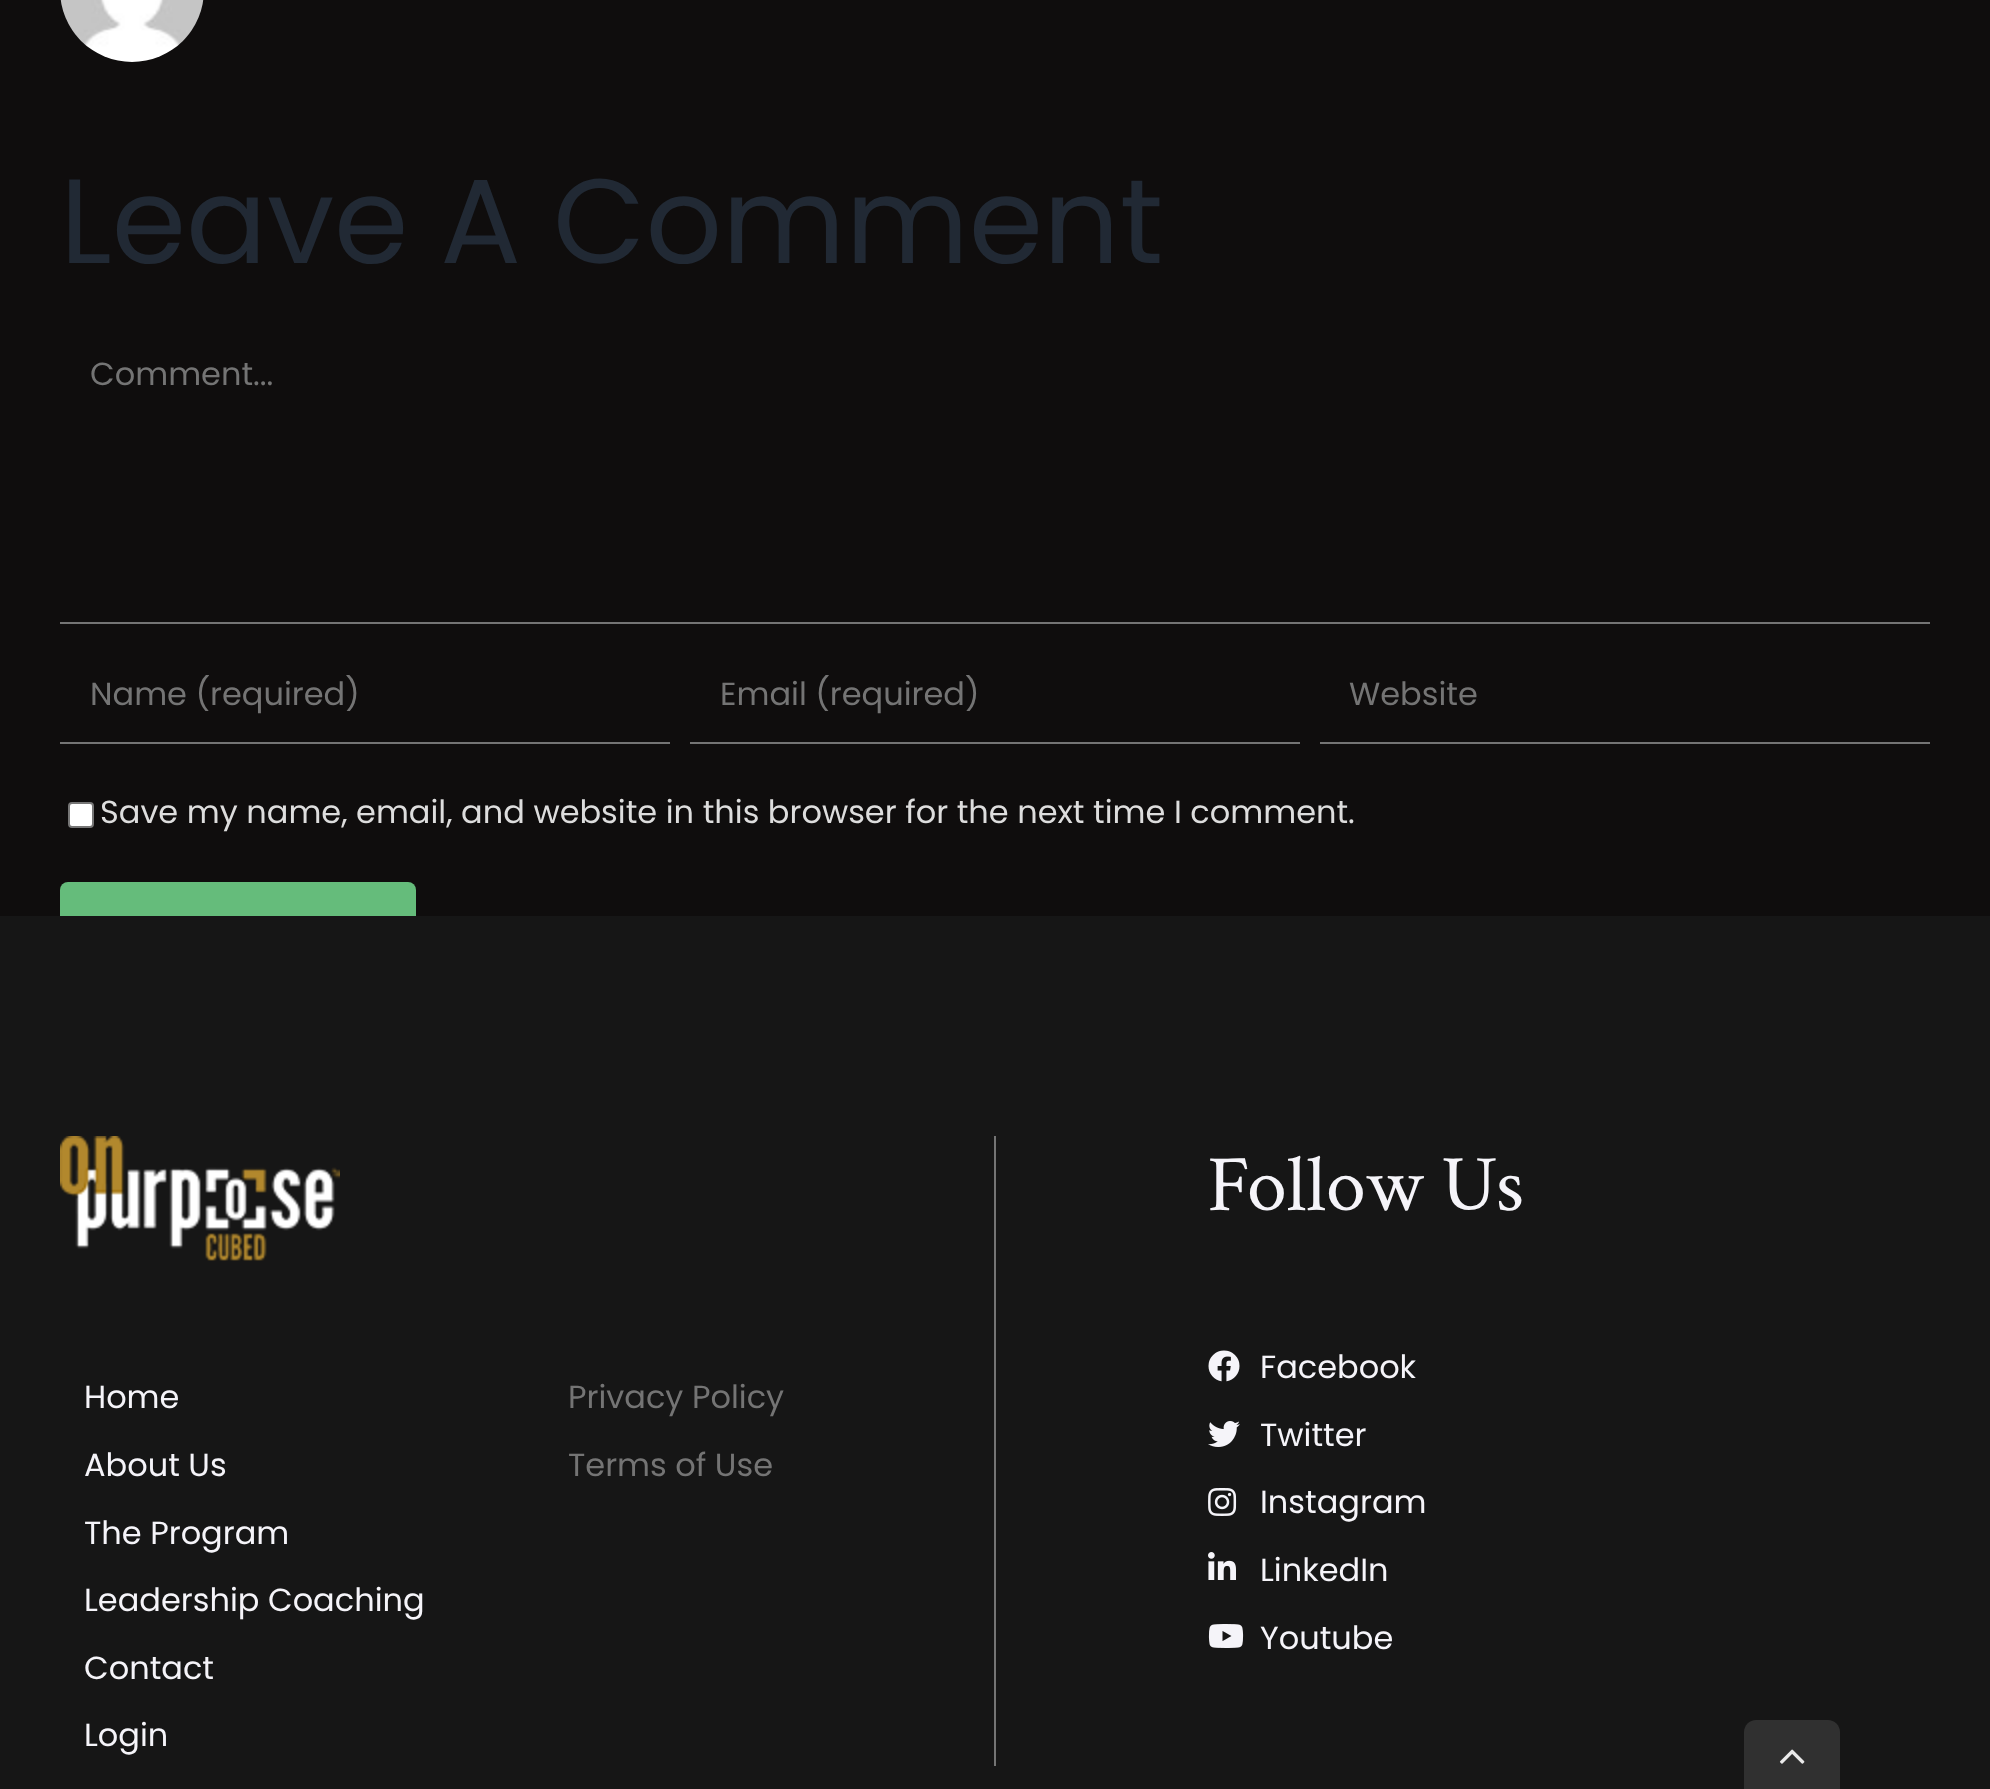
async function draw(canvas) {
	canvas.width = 1990;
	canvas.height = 1789;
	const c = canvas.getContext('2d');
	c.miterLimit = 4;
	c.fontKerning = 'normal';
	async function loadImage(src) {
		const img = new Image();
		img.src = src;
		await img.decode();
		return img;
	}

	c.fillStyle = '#0f0d0d';
	c.fillRect(0, 0, 1990, 1789);
	c.drawImage(await loadImage('img1.png'), 60, 0, 144, 62);
	c.font = '119.75px Poppins';
	c.fillStyle = '#212934';
	c.fillText('Leave A Comment', 60, 263);
	c.fillStyle = '#747474';
	c.fillRect(60, 622, 1870, 2);
	c.font = '32px Poppins';
	c.fillText('Comment...', 90, 385);
	c.fillRect(60, 742, 610, 2);
	c.fillText('Name (required)', 90, 705);
	c.fillRect(690, 742, 610, 2);
	c.fillText('Email (required)', 720, 705);
	c.fillRect(1320, 742, 610, 2);
	c.fillText('Website', 1349, 705);
	c.fillStyle = '#fff';
	c.beginPath();
	c.roundRect(69, 803, 24, 24, 3);
	c.fill();
	c.strokeStyle = '#767676';
	c.lineWidth = 2;
	c.stroke();
	c.fillStyle = '#ddd';
	c.fillText('Save my name, email, and website in this browser for the next time I comment.', 100, 823);
	c.fillStyle = '#65bc7b';
	c.beginPath();
	c.roundRect(60, 882, 356, 84, 8);
	c.fill();
	c.fillStyle = '#161616';
	c.fillRect(0, 916, 1990, 873);
	c.drawImage(await loadImage('img2.png'), 60, 1136, 280, 125);
	c.fillStyle = '#f5f4f9';
	for (const [text, x, y] of [
		['Home', 84, 1408],
		['About Us', 84, 1476],
		['The Program', 84, 1544],
		['Leadership Coaching', 84, 1611],
		['Contact', 84, 1679],
		['Login', 84, 1746],
	]) {
		c.fillText(text, x, y);
	}
	c.fillStyle = '#747474';
	c.fillRect(994, 1136, 2, 630);
	c.fillText('Privacy Policy', 568, 1408);
	c.fillText('Terms of Use', 568, 1476);
	c.font = '80px Crimson Text';
	c.fillStyle = '#f5f4f9';
	c.fillText('Follow Us', 1207, 1210);
	c.drawImage(await loadImage('img3.png'), 1208, 1350, 32, 32);
	c.font = '32px Poppins';
	c.fillText('Facebook', 1260, 1378);
	c.drawImage(await loadImage('img4.png'), 1208, 1421, 32, 26);
	c.fillText('Twitter', 1260, 1446);
	c.drawImage(await loadImage('img5.png'), 1208, 1488, 29, 28);
	c.fillText('Instagram', 1260, 1513);
	c.drawImage(await loadImage('img6.png'), 1208, 1552, 28, 28);
	c.fillText('LinkedIn', 1260, 1581);
	c.drawImage(await loadImage('img7.png'), 1208, 1624, 36, 24);
	c.fillText('Youtube', 1260, 1649);
	c.fillStyle = '#303030';
	c.beginPath();
	c.moveTo(1756, 1720);
	c.lineTo(1828, 1720);
	c.bezierCurveTo(1834.5, 1720, 1840, 1725.5, 1840, 1732);
	c.lineTo(1840, 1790);
	c.lineTo(1744, 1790);
	c.lineTo(1744, 1732);
	c.bezierCurveTo(1744, 1725.5, 1749.5, 1720, 1756, 1720);
	c.closePath();
	c.fill();
	c.drawImage(await loadImage('img8.png'), 1779, 1749, 26, 15);
}

draw(document.querySelector('canvas'));
